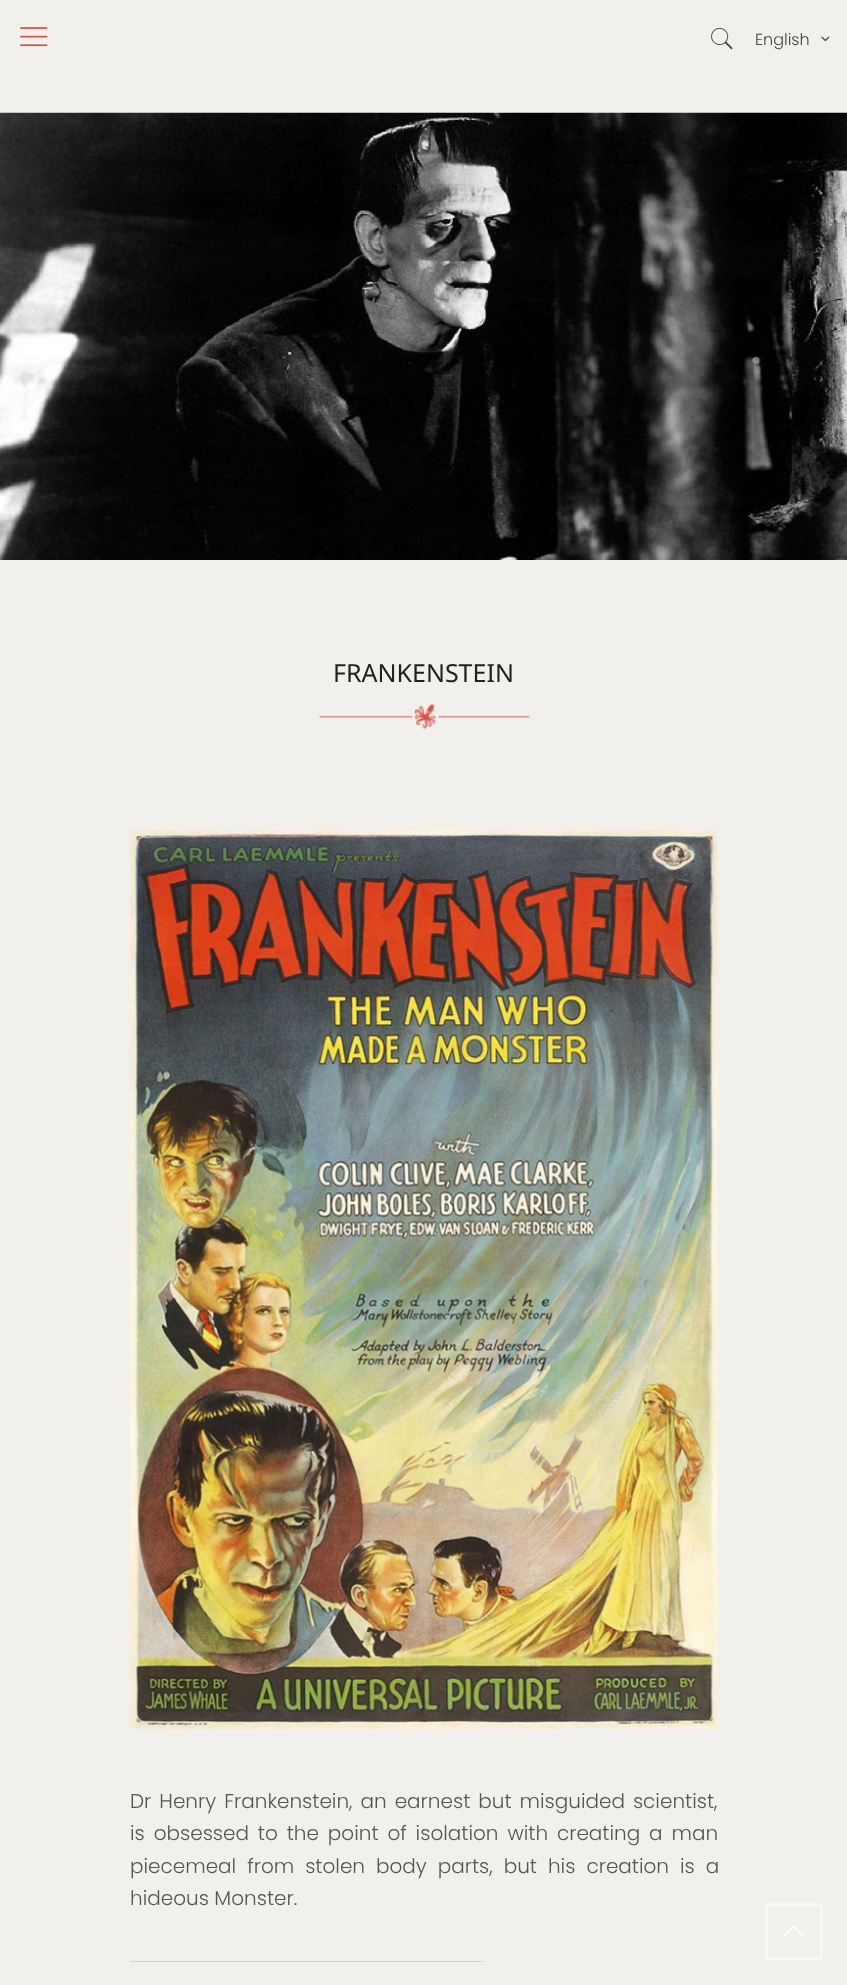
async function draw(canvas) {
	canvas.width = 847;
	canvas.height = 1985;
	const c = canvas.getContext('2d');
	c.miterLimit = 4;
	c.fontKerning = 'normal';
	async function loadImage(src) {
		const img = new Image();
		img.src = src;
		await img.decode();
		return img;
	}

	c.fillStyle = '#f1f0ed';
	c.fillRect(0, 0, 847, 1985);
	c.drawImage(await loadImage('img1.png'), 20, 27, 28, 20);
	c.drawImage(await loadImage('img2.png'), 711, 27, 22, 23);
	c.font = '300 16px Poppins';
	c.fillStyle = '#444';
	c.fillText('English', 755, 45);
	c.drawImage(await loadImage('img3.png'), 821, 36, 9, 6);
	c.drawImage(await loadImage('img4.png'), 0, 112, 847, 448);
	c.font = '25px Noto Sans';
	c.fillStyle = '#212121';
	c.fillText('FRANKENSTEIN', 333, 682);
	c.drawImage(await loadImage('img5.png'), 318, 703, 212, 26);
	c.drawImage(await loadImage('img6.png'), 129, 830, 589, 899);
	c.wordSpacing = '2.5px';
	c.font = '300 20px Poppins';
	c.fillStyle = '#555';
	c.fillText('Dr Henry Frankenstein, an earnest but misguided scientist,', 130, 1808);
	c.wordSpacing = '3.4px';
	c.fillText('is obsessed to the point of isolation with creating a man', 130, 1840);
	c.wordSpacing = '5.5px';
	c.fillText('piecemeal from stolen body parts, but his creation is a', 130, 1873);
	c.wordSpacing = '0px';
	c.fillText('hideous Monster.', 130, 1905);
	c.fillStyle = '#eac9c3';
	c.fillRect(130, 1961, 353, 1);
	c.beginPath();
	c.roundRect(766.5, 1904.5, 55, 54, 2.5);
	c.strokeStyle = '#f7f7f7';
	c.lineWidth = 3;
	c.stroke();
	c.drawImage(await loadImage('img7.png'), 782, 1925, 22, 12);
}

draw(document.querySelector('canvas'));
